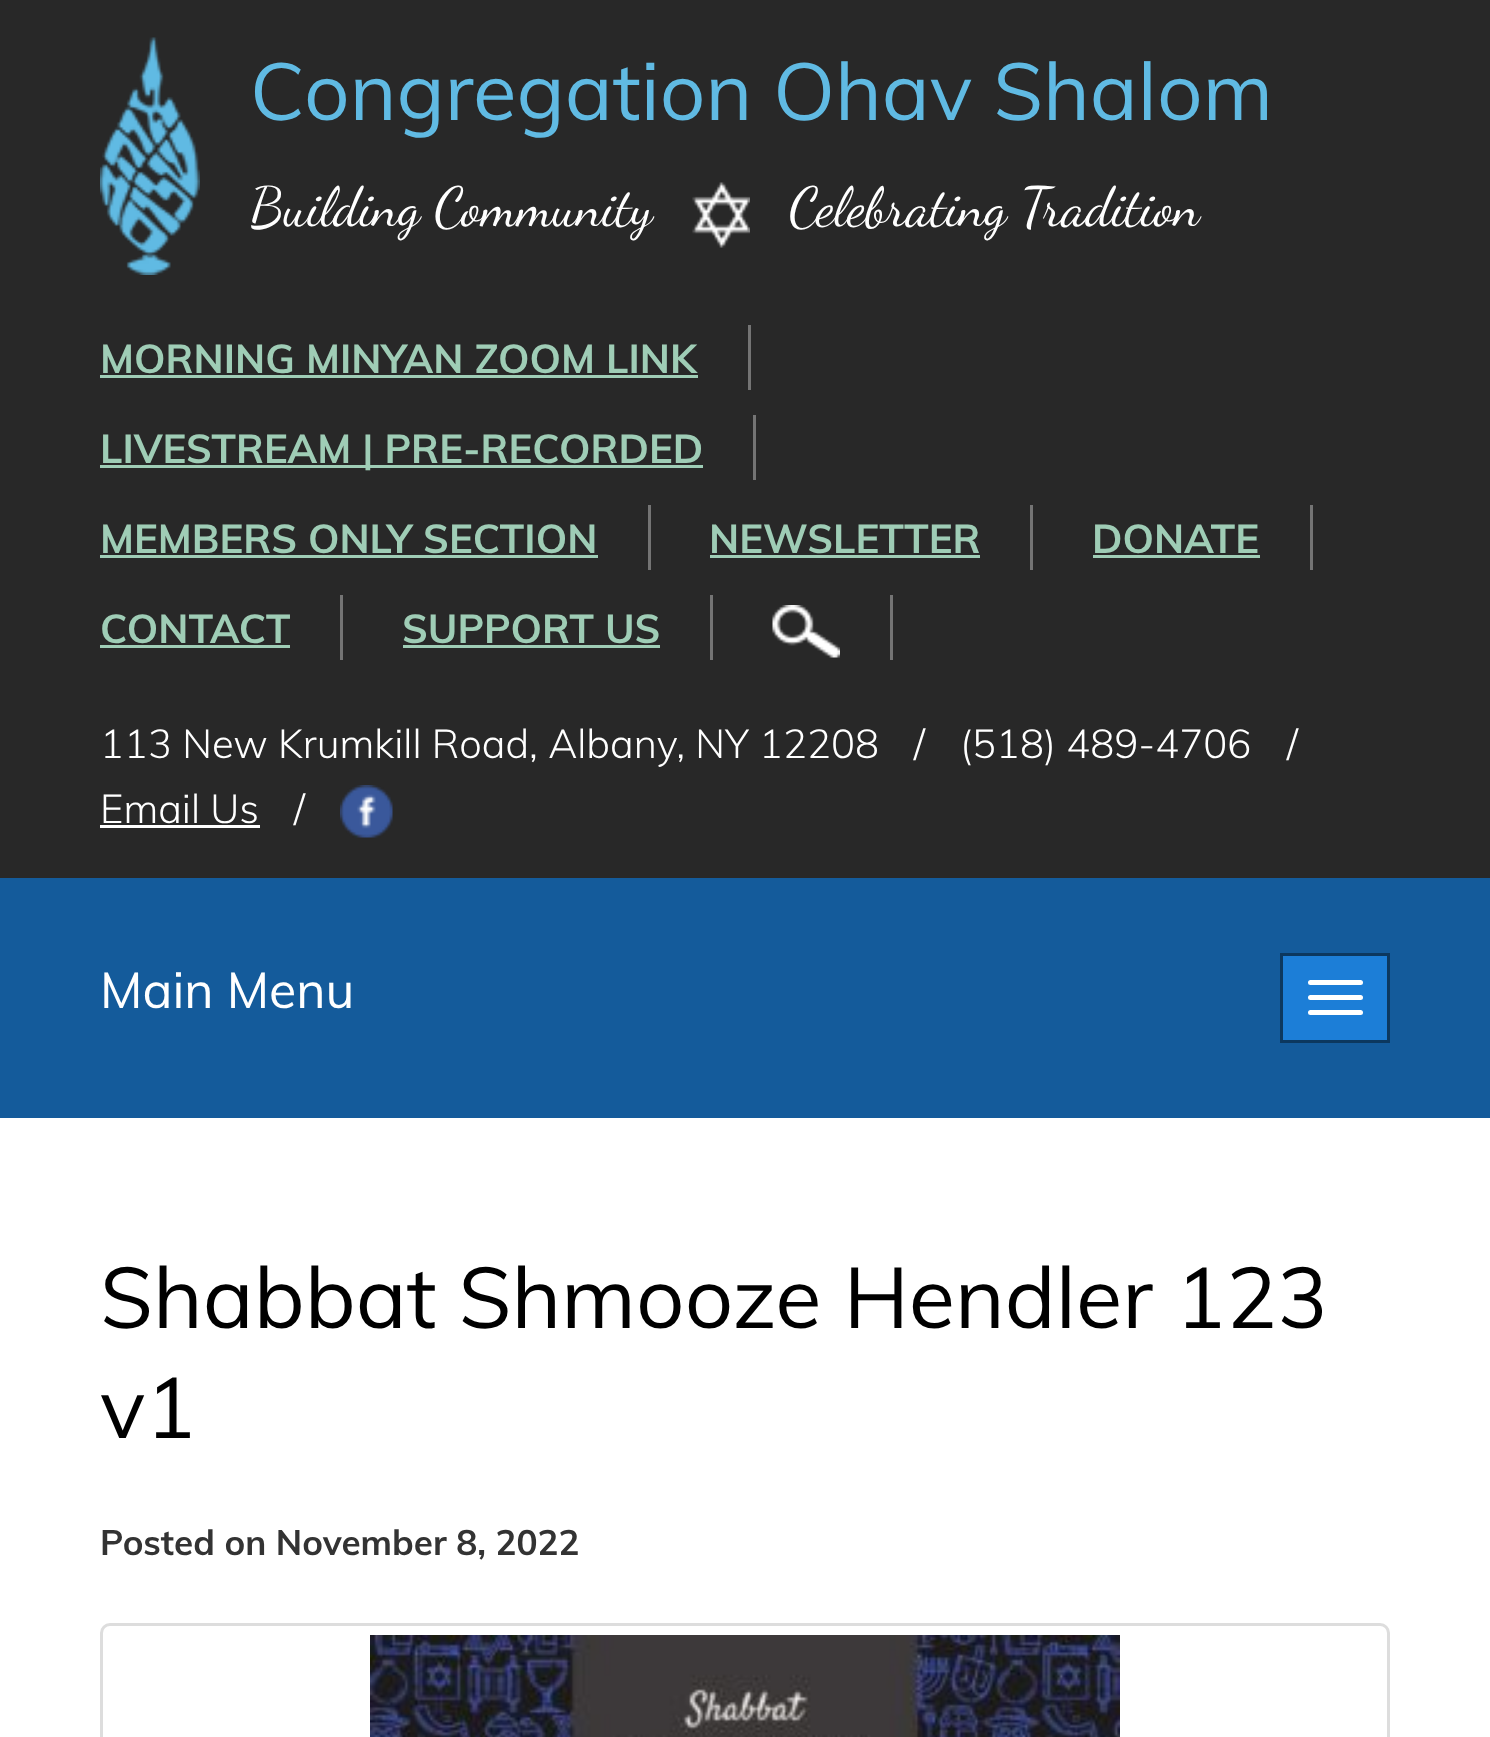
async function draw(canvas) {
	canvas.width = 1490;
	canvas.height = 1737;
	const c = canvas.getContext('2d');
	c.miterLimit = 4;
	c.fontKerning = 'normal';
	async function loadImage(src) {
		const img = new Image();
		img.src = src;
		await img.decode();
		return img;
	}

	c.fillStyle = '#282828';
	c.fillRect(0, 0, 1490, 1737);
	c.drawImage(await loadImage('img1.png'), 100, 37, 100, 238);
	c.font = '80px Muli';
	c.fillStyle = '#60bae3';
	c.fillText('Congregation Ohav Shalom', 250, 120);
	c.font = '55px Dancing Script';
	c.fillStyle = '#fff';
	c.fillText('Building Community', 250, 225);
	c.drawImage(await loadImage('img2.png'), 692, 182, 58, 66);
	c.fillText('Celebrating Tradition', 789, 225);
	c.fillStyle = '#747474';
	c.fillRect(748, 325, 3, 65);
	c.font = 'bold 40px Muli';
	c.fillStyle = '#9fcdb6';
	c.fillText('MORNING MINYAN ZOOM LINK', 100, 373);
	for (const [x, y, w, h, color] of [
		[100, 375, 598, 3, '#9fcdb6'],
		[753, 415, 3, 65, '#747474'],
		[100, 465, 603, 3, '#9fcdb6'],
	]) {
		c.fillStyle = color;
		c.fillRect(x, y, w, h);
	}
	c.fillText('LIVESTREAM | PRE-RECORDED', 100, 463);
	c.fillStyle = '#747474';
	c.fillRect(648, 505, 3, 65);
	c.fillStyle = '#9fcdb6';
	c.fillText('MEMBERS ONLY SECTION', 100, 553);
	c.fillRect(100, 555, 498, 3);
	c.fillStyle = '#747474';
	c.fillRect(1030, 505, 3, 65);
	c.fillStyle = '#9fcdb6';
	c.fillText('NEWSLETTER', 709, 553);
	c.fillRect(710, 555, 270, 3);
	c.fillStyle = '#747474';
	c.fillRect(1310, 505, 3, 65);
	c.fillStyle = '#9fcdb6';
	c.fillText('DONATE', 1092, 553);
	c.fillRect(1093, 555, 167, 3);
	c.fillStyle = '#747474';
	c.fillRect(340, 595, 3, 65);
	c.fillStyle = '#9fcdb6';
	c.fillText('CONTACT', 100, 643);
	c.fillRect(100, 645, 190, 3);
	c.fillStyle = '#747474';
	c.fillRect(710, 595, 3, 65);
	c.fillStyle = '#9fcdb6';
	c.fillText('SUPPORT US', 402, 643);
	c.fillRect(403, 645, 257, 3);
	c.fillStyle = '#747474';
	c.fillRect(890, 595, 3, 65);
	c.drawImage(await loadImage('img3.png'), 772, 605, 68, 53);
	c.font = '300 40px Muli';
	c.fillStyle = '#fff';
	for (const [text, x, y] of [
		['113 New Krumkill Road, Albany, NY 12208', 100, 758],
		['/', 914, 758],
		['(518) 489-4706', 960, 758],
		['/', 1287, 758],
		['Email Us', 100, 823],
	]) {
		c.fillText(text, x, y);
	}
	c.fillRect(100, 825, 160, 3);
	c.fillText('/', 294, 823);
	c.drawImage(await loadImage('img4.png'), 340, 785, 53, 53);
	c.fillStyle = '#145b9b';
	c.fillRect(0, 878, 1490, 240);
	c.font = '50px Muli';
	c.fillStyle = '#fff';
	c.fillText('Main Menu', 100, 1008);
	c.fillStyle = '#1c7ed7';
	c.beginPath();
	c.rect(1281.5, 954.5, 107, 87);
	c.fill();
	c.strokeStyle = '#0c385f';
	c.lineWidth = 3;
	c.stroke();
	c.fillStyle = '#fff';
	c.beginPath();
	c.roundRect(1308, 980, 55, 5, 2.5);
	c.fill();
	c.beginPath();
	c.roundRect(1308, 995, 55, 5, 2.5);
	c.fill();
	c.beginPath();
	c.roundRect(1308, 1010, 55, 5, 2.5);
	c.fill();
	c.fillRect(0, 1118, 1490, 619);
	c.font = '85px Muli';
	c.fillStyle = '#000';
	c.fillText('Shabbat Shmooze Hendler 123', 100, 1328);
	c.fillText('v1', 100, 1438);
	c.font = 'bold 35px Muli';
	c.fillStyle = '#333';
	c.fillText('Posted on November 8, 2022', 100, 1555);
	c.beginPath();
	c.roundRect(101.5, 1624.5, 1287, 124, 8.5);
	c.strokeStyle = '#ddd';
	c.stroke();
	c.drawImage(await loadImage('img5.png'), 370, 1635, 750, 102);
}

draw(document.querySelector('canvas'));
